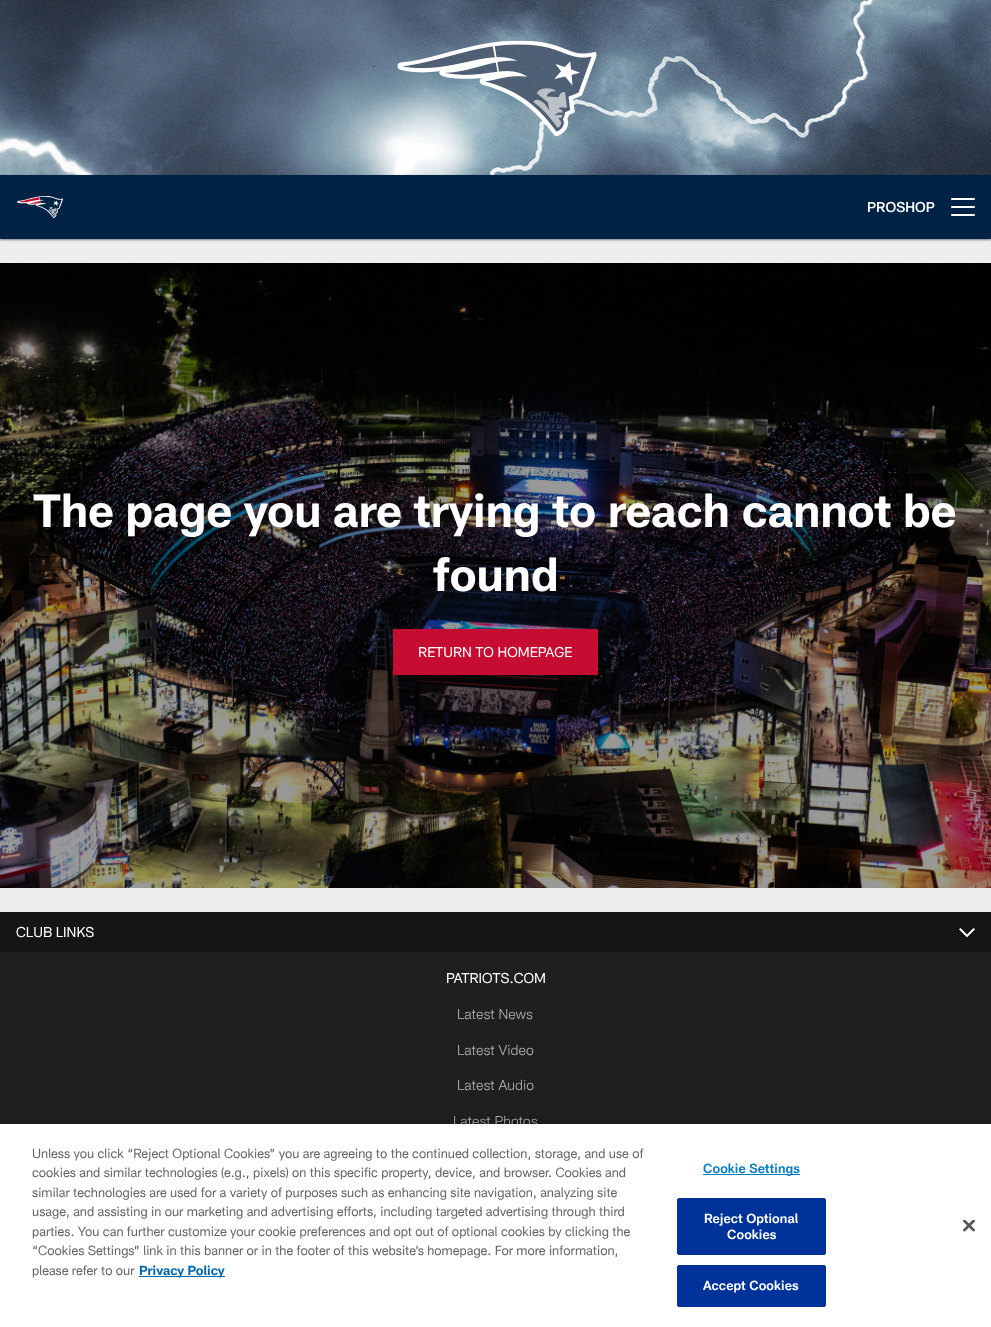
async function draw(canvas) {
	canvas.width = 991;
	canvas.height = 1327;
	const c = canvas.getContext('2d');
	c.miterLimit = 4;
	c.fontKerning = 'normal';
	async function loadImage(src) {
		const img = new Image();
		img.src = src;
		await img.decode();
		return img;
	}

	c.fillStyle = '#eee';
	c.fillRect(0, 0, 991, 1327);
	c.drawImage(await loadImage('img1.png'), 0, 0, 991, 175);
	c.fillStyle = '#00000078';
	c.filter = 'blur(1px)';
	c.beginPath();
	c.rect(0, 176, 991, 64);
	c.fill();
	c.filter = 'none';
	c.fillStyle = '#024';
	c.fillRect(0, 175, 991, 64);
	c.drawImage(await loadImage('img2.png'), 17, 196, 46, 22);
	c.font = '500 14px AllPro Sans';
	c.fillStyle = '#fff';
	c.fillText('PROSHOP', 867, 212);
	c.beginPath();
	c.roundRect(951, 206, 24, 2, 1);
	c.fill();
	c.beginPath();
	c.roundRect(951, 198, 24, 2, 1);
	c.fill();
	c.beginPath();
	c.roundRect(951, 214, 24, 2, 1);
	c.fill();
	c.drawImage(await loadImage('img3.png'), 0, 263, 991, 625);
	c.font = 'bold 45.9px AllPro Sans';
	c.fillText('The page you are trying to reach cannot be', 33, 527);
	c.fillText('found', 433, 591);
	c.fillStyle = '#c60c30';
	c.fillRect(393, 629, 205, 46);
	c.font = '14px AllPro Sans';
	c.fillStyle = '#fff';
	c.fillText('RETURN TO HOMEPAGE', 418, 657);
	c.fillStyle = '#1f1f1f';
	c.fillRect(0, 952, 991, 172);
	c.fillStyle = '#151515';
	c.fillRect(0, 912, 991, 40);
	c.fillStyle = '#fff';
	c.fillText('CLUB LINKS', 16, 937);
	c.drawImage(await loadImage('img4.png'), 959, 928, 16, 10);
	c.fillText('PATRIOTS.COM', 446, 983);
	c.font = '300 14px AllPro Sans';
	c.fillStyle = '#b2b2b2';
	for (const [text, x, y] of [
		['Latest News', 457, 1019],
		['Latest Video', 457, 1055],
		['Latest Audio', 457, 1090],
		['Latest Photos', 453, 1126],
	]) {
		c.fillText(text, x, y);
	}
	c.fillStyle = '#00000033';
	c.filter = 'blur(9px)';
	c.beginPath();
	c.rect(0, 1124, 991, 203);
	c.fill();
	c.filter = 'none';
	c.fillStyle = '#fff';
	c.fillRect(0, 1124, 991, 203);
	c.font = '13px AllPro Sans';
	c.fillStyle = '#666';
	for (const [text, x, y] of [
		['Unless you click “Reject Optional Cookies” you are agreeing to the continued collection, storage, and use of', 32, 1158],
		['cookies and similar technologies (e.g., pixels) on this specific property, device, and browser. Cookies and', 32, 1177],
		['similar technologies are used for a variety of purposes such as enhancing site navigation, analyzing site', 32, 1197],
		['usage, and assisting in our marketing and advertising efforts, including targeted advertising through third', 32, 1216],
		['parties. You can further customize your cookie preferences and opt out of optional cookies by clicking the', 32, 1236],
		['“Cookies Settings” link in this banner or in the footer of this website’s homepage. For more information,', 32, 1255],
		['please refer to our', 32, 1275],
	]) {
		c.fillText(text, x, y);
	}
	c.fillStyle = '#0067b1';
	c.fillRect(139, 1276, 86, 1);
	c.font = 'bold 13px AllPro Sans';
	c.fillText('Privacy Policy', 139, 1275);
	c.fillStyle = '#007dc3';
	c.fillRect(703, 1174, 97, 1);
	c.letterSpacing = '0.1px';
	c.font = '600 13px AllPro Sans';
	c.fillText('Cookie Settings', 703, 1173);
	c.fillStyle = '#039';
	c.beginPath();
	c.roundRect(677.5, 1198.5, 148, 56, 1.5);
	c.fill();
	c.strokeStyle = '#039';
	c.stroke();
	c.fillStyle = '#fff';
	c.fillText('Reject Optional', 704, 1223);
	c.fillText('Cookies', 727, 1239);
	c.fillStyle = '#039';
	c.beginPath();
	c.roundRect(677.5, 1265.5, 148, 41, 1.5);
	c.fill();
	c.stroke();
	c.fillStyle = '#fff';
	c.fillText('Accept Cookies', 703, 1290);
	c.drawImage(await loadImage('img5.png'), 963, 1220, 12, 12);
}

draw(document.querySelector('canvas'));
